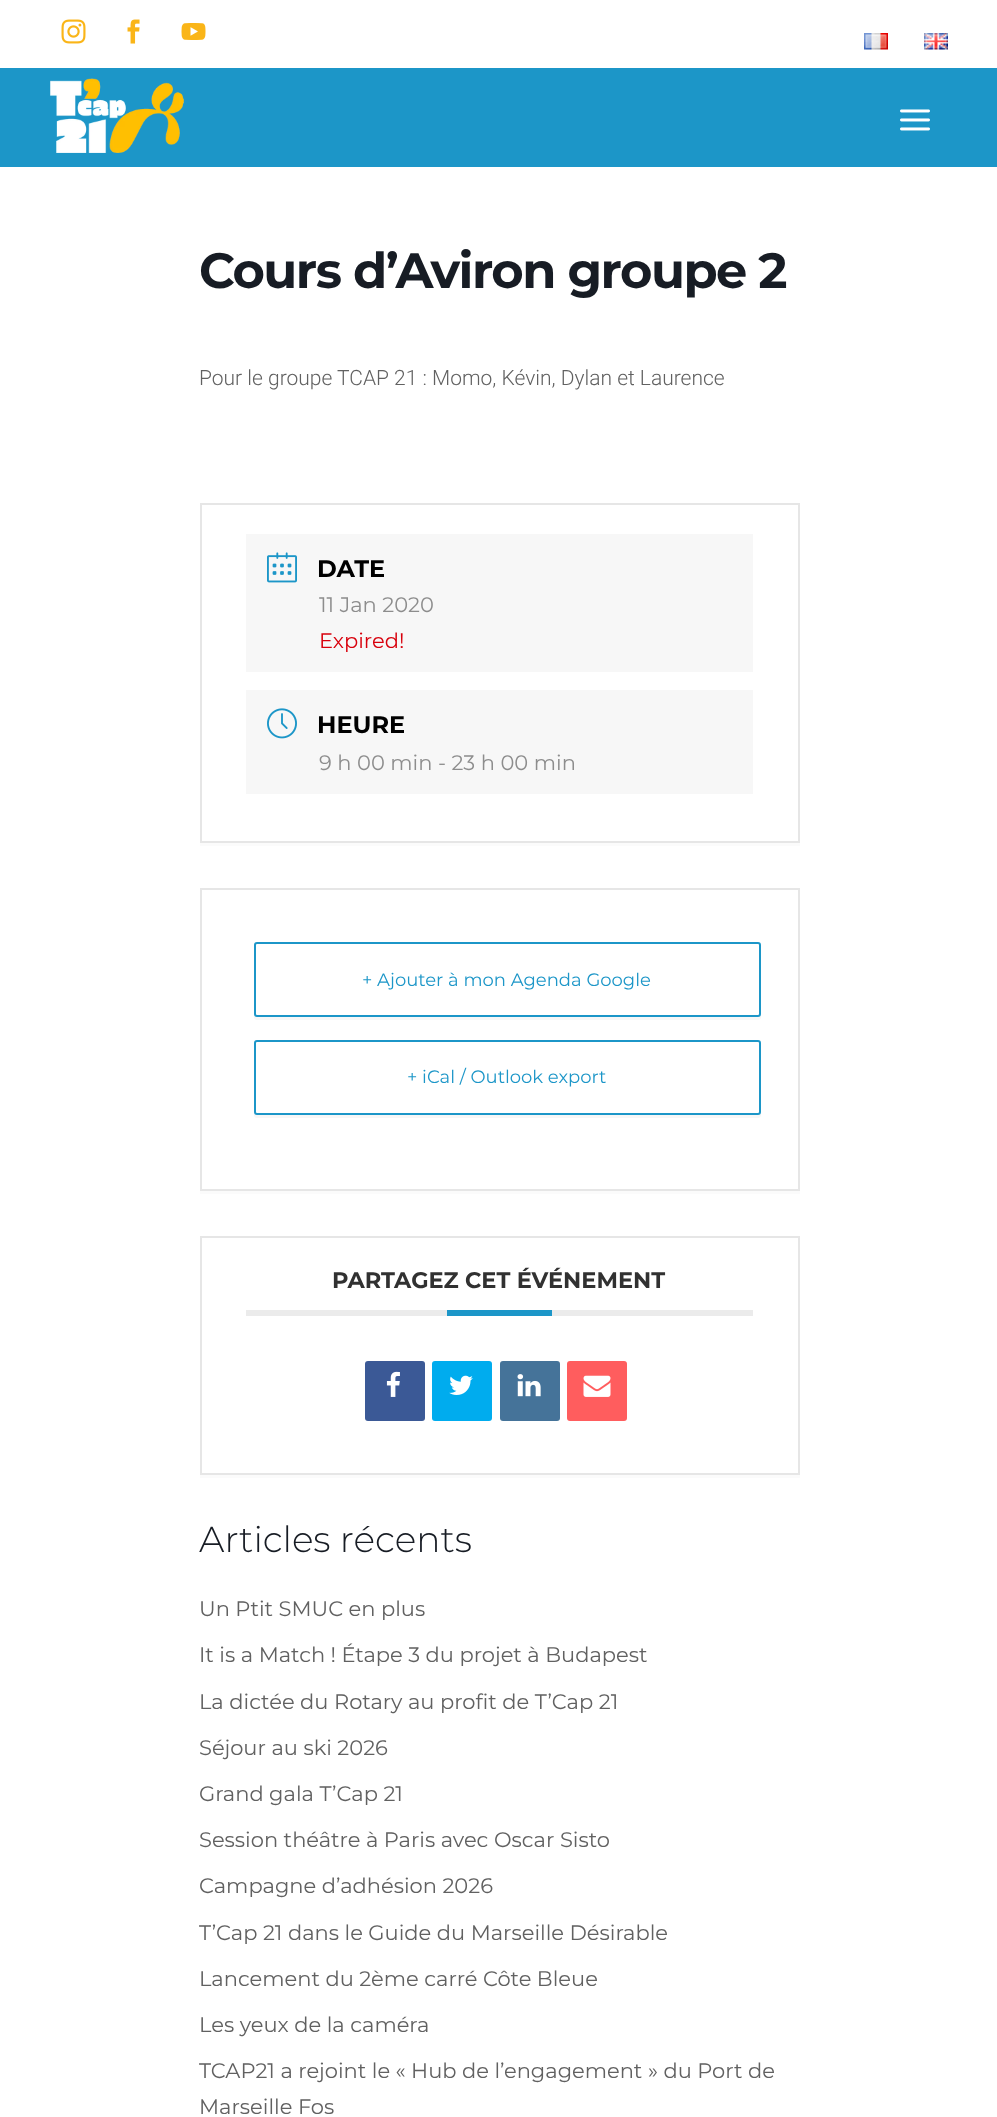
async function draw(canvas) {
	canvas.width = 997;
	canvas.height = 2117;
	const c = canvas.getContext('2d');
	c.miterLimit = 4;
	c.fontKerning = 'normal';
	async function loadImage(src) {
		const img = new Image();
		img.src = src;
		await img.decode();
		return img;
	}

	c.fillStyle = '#fff';
	c.fillRect(0, 0, 997, 2117);
	c.drawImage(await loadImage('img1.png'), 61, 19, 25, 25);
	c.drawImage(await loadImage('img2.png'), 127, 19, 13, 25);
	c.drawImage(await loadImage('img3.png'), 181, 23, 25, 17);
	c.drawImage(await loadImage('img4.png'), 864, 33, 24, 17);
	c.drawImage(await loadImage('img5.png'), 924, 33, 24, 17);
	c.fillStyle = '#1c96c8';
	c.fillRect(0, 68, 997, 99);
	c.drawImage(await loadImage('img6.png'), 50, 78, 134, 75);
	c.drawImage(await loadImage('img7.png'), 900, 109, 30, 22);
	c.letterSpacing = '-1.5px';
	c.font = 'bold 49.5px Montserrat';
	c.fillStyle = '#171c24';
	c.fillText('Cours d’Aviron groupe 2', 199, 288);
	c.letterSpacing = '0px';
	c.font = '300 21px Roboto';
	c.fillStyle = '#616161';
	c.fillText('Pour le groupe TCAP 21 : Momo, Kévin, Dylan et Laurence', 199, 385);
	c.fillStyle = '#fbfbfb';
	c.beginPath();
	c.moveTo(200, 843);
	c.lineTo(200, 846);
	c.lineTo(800, 846);
	c.lineTo(800, 506);
	c.lineTo(800, 843);
	c.closePath();
	c.fill();
	c.strokeStyle = '#e6e6e6';
	c.lineWidth = 2;
	c.strokeRect(201, 504, 598, 338);
	c.fillStyle = '#f7f7f7';
	c.fillRect(246, 534, 507, 138);
	c.drawImage(await loadImage('img8.png'), 267, 552, 30, 31);
	c.font = 'bold 24px Montserrat';
	c.fillStyle = '#000';
	c.fillText('DATE', 317, 577);
	c.font = '21px Montserrat';
	c.fillStyle = '#8d8d8d';
	c.fillText('11 Jan 2020', 319, 612);
	c.fillStyle = '#d8000c';
	c.fillText('Expired!', 319, 648);
	c.fillStyle = '#f7f7f7';
	c.fillRect(246, 690, 507, 104);
	c.drawImage(await loadImage('img9.png'), 267, 708, 30, 31);
	c.font = 'bold 24px Montserrat';
	c.fillStyle = '#000';
	c.fillText('HEURE', 317, 733);
	c.font = '21px Montserrat';
	c.fillStyle = '#8d8d8d';
	c.fillText('9 h 00 min - 23 h 00 min', 319, 770);
	c.fillStyle = '#fbfbfb';
	c.beginPath();
	c.moveTo(200, 1191);
	c.lineTo(200, 1194);
	c.lineTo(800, 1194);
	c.lineTo(800, 891);
	c.lineTo(800, 1191);
	c.closePath();
	c.fill();
	c.strokeRect(201, 889, 598, 301);
	c.fillStyle = '#f7f7f7';
	c.beginPath();
	c.moveTo(254, 1016);
	c.lineTo(254, 1017);
	c.bezierCurveTo(254, 1019, 255, 1020, 257, 1020);
	c.lineTo(758, 1020);
	c.bezierCurveTo(760, 1020, 761, 1019, 761, 1017);
	c.lineTo(761, 948);
	c.lineTo(760, 946);
	c.lineTo(760, 1014);
	c.bezierCurveTo(760, 1016, 759, 1017, 758, 1017);
	c.lineTo(256, 1017);
	c.bezierCurveTo(255, 1017, 255, 1016, 254, 1016);
	c.closePath();
	c.fill();
	c.fillStyle = '#fff';
	c.beginPath();
	c.roundRect(255, 943, 505, 73, 2);
	c.fill();
	c.strokeStyle = '#1c96c8';
	c.stroke();
	c.font = '18px Montserrat';
	c.fillStyle = '#1c96c8';
	c.fillText('+ Ajouter à mon Agenda Google', 362, 986);
	c.fillStyle = '#f7f7f7';
	c.beginPath();
	c.moveTo(254, 1113);
	c.lineTo(254, 1115);
	c.bezierCurveTo(254, 1117, 255, 1118, 257, 1118);
	c.lineTo(758, 1118);
	c.bezierCurveTo(760, 1118, 761, 1117, 761, 1115);
	c.lineTo(761, 1046);
	c.lineTo(760, 1044);
	c.lineTo(760, 1112);
	c.bezierCurveTo(760, 1113, 759, 1114, 758, 1114);
	c.lineTo(256, 1114);
	c.bezierCurveTo(255, 1114, 255, 1114, 254, 1113);
	c.closePath();
	c.fill();
	c.fillStyle = '#fff';
	c.beginPath();
	c.roundRect(255, 1041, 505, 73, 2);
	c.fill();
	c.stroke();
	c.fillStyle = '#1c96c8';
	c.fillText('+ iCal / Outlook export', 407, 1083);
	c.fillStyle = '#fbfbfb';
	c.beginPath();
	c.moveTo(200, 1474);
	c.lineTo(200, 1478);
	c.lineTo(800, 1478);
	c.lineTo(800, 1239);
	c.lineTo(800, 1474);
	c.closePath();
	c.fill();
	c.strokeStyle = '#e6e6e6';
	c.strokeRect(201, 1237, 598, 237);
	c.fillStyle = '#ebebeb';
	c.fillRect(246, 1310, 507, 6);
	c.font = 'bold 22.5px Montserrat';
	c.fillStyle = '#313131';
	c.fillText('PARTAGEZ CET ÉVÉNEMENT', 332, 1288);
	c.fillStyle = '#1c96c8';
	c.fillRect(447, 1310, 105, 6);
	c.fillStyle = '#3b5996';
	c.beginPath();
	c.roundRect(365, 1361, 60, 60, 3);
	c.fill();
	c.drawImage(await loadImage('img10.png'), 386, 1371, 14, 26);
	c.fillStyle = '#00acee';
	c.beginPath();
	c.roundRect(432, 1361, 60, 60, 3);
	c.fill();
	c.drawImage(await loadImage('img11.png'), 449, 1375, 24, 20);
	c.fillStyle = '#457399';
	c.beginPath();
	c.roundRect(500, 1361, 60, 60, 3);
	c.fill();
	c.drawImage(await loadImage('img12.png'), 517, 1374, 24, 23);
	c.fillStyle = '#ff5d5e';
	c.beginPath();
	c.roundRect(567, 1361, 60, 60, 3);
	c.fill();
	c.drawImage(await loadImage('img13.png'), 583, 1375, 28, 22);
	c.font = '300 36px Montserrat';
	c.fillStyle = '#171c24';
	c.fillText('Articles récents', 199, 1552);
	c.font = '21px Montserrat';
	c.fillStyle = '#616161';
	for (const [text, x, y] of [
		['Un Ptit SMUC en plus', 199, 1616],
		['It is a Match ! Étape 3 du projet à Budapest', 199, 1662],
		['La dictée du Rotary au profit de T’Cap 21', 199, 1709],
		['Séjour au ski 2026', 199, 1755],
		['Grand gala T’Cap 21', 199, 1801],
		['Session théâtre à Paris avec Oscar Sisto', 199, 1847],
		['Campagne d’adhésion 2026', 199, 1893],
		['T’Cap 21 dans le Guide du Marseille Désirable', 199, 1940],
		['Lancement du 2ème carré Côte Bleue', 199, 1986],
		['Les yeux de la caméra', 199, 2032],
		['TCAP21 a rejoint le « Hub de l’engagement » du Port de', 199, 2078],
		['Marseille Fos', 199, 2114],
	]) {
		c.fillText(text, x, y);
	}
}

draw(document.querySelector('canvas'));
